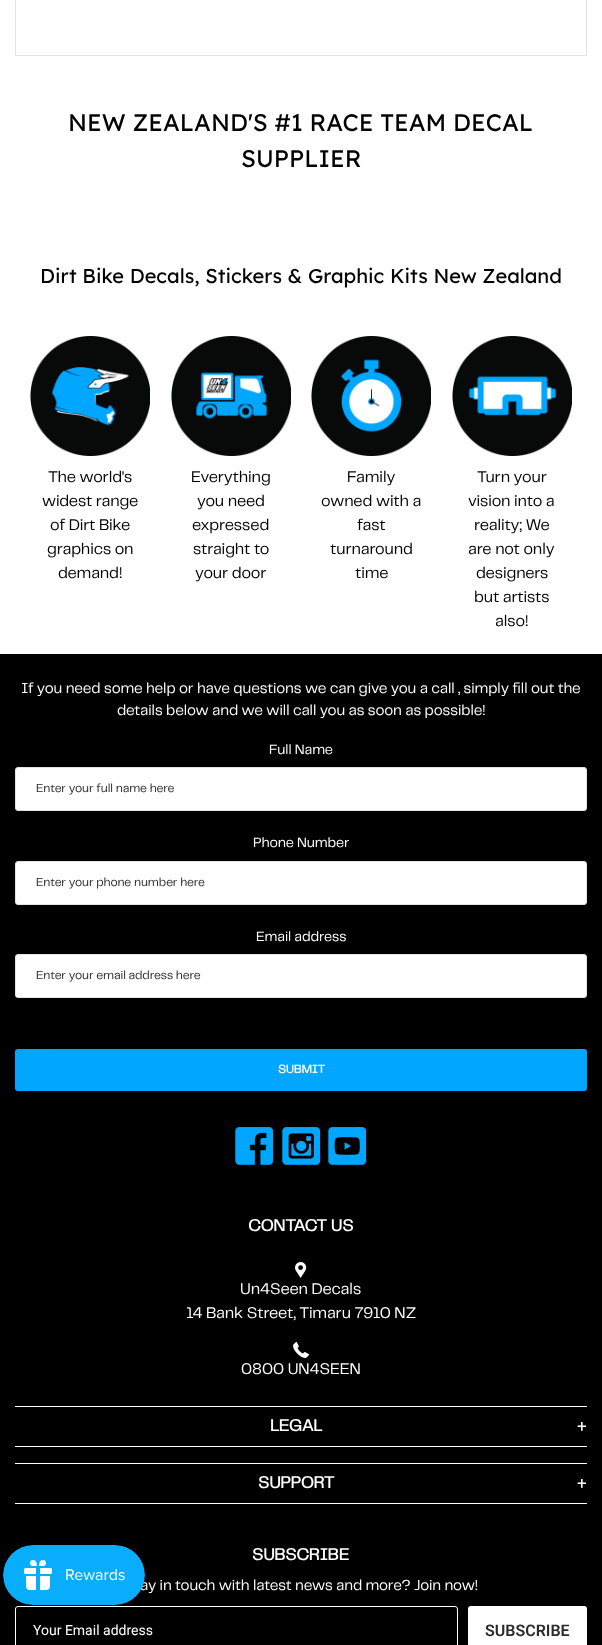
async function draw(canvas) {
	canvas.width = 602;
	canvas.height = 1645;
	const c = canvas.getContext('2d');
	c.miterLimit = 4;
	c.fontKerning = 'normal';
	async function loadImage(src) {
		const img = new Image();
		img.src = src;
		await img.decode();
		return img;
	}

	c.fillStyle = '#fff';
	c.fillRect(0, 0, 602, 1645);
	c.strokeStyle = '#e4e4e4';
	c.strokeRect(15.5, -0.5, 571, 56);
	c.font = '24px Lexend';
	c.fillStyle = '#000';
	c.fillText('NEW ZEALAND\'S #1 RACE TEAM DECAL', 68, 131);
	c.fillText('SUPPLIER', 241, 167);
	c.font = '20px Lexend';
	c.fillText('Dirt Bike Decals, Stickers & Graphic Kits New Zealand', 40, 283);
	c.drawImage(await loadImage('img1.png'), 30, 336, 120, 120);
	c.font = '16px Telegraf';
	for (const [text, x, y] of [
		['The world\'s', 48, 482],
		['widest range', 42, 506],
		['of Dirt Bike', 50, 530],
		['graphics on', 47, 554],
		['demand!', 58, 578],
	]) {
		c.fillText(text, x, y);
	}
	c.drawImage(await loadImage('img2.png'), 171, 336, 120, 120);
	for (const [text, x, y] of [
		['Everything', 191, 482],
		['you need', 197, 506],
		['expressed', 192, 530],
		['straight to', 193, 554],
		['your door', 195, 578],
	]) {
		c.fillText(text, x, y);
	}
	c.drawImage(await loadImage('img3.png'), 311, 336, 120, 120);
	for (const [text, x, y] of [
		['Family', 347, 482],
		['owned with a', 321, 506],
		['fast', 357, 530],
		['turnaround', 330, 554],
		['time', 355, 578],
	]) {
		c.fillText(text, x, y);
	}
	c.drawImage(await loadImage('img4.png'), 452, 336, 120, 120);
	for (const [text, x, y] of [
		['Turn your', 477, 482],
		['vision into a', 468, 506],
		['reality; We', 474, 530],
		['are not only', 468, 554],
		['designers', 476, 578],
		['but artists', 474, 602],
		['also!', 495, 626],
	]) {
		c.fillText(text, x, y);
	}
	c.fillRect(0, 654, 602, 991);
	c.font = '15px Telegraf';
	c.fillStyle = '#fff';
	c.fillText('If you need some help or have questions we can give you a call , simply fill out the', 21, 693);
	c.fillText('details below and we will call you as soon as possible!', 117, 715);
	c.font = '14px Telegraf';
	c.fillText('Full Name', 269, 754);
	c.beginPath();
	c.roundRect(15.5, 767.5, 571, 43, 2.5);
	c.fill();
	c.stroke();
	c.font = '12px Telegraf';
	c.fillStyle = '#282b2f';
	c.fillText('Enter your full name here', 36, 792);
	c.font = '14px Telegraf';
	c.fillStyle = '#fff';
	c.fillText('Phone Number', 253, 847);
	c.beginPath();
	c.roundRect(15.5, 861.5, 571, 43, 2.5);
	c.fill();
	c.stroke();
	c.font = '12px Telegraf';
	c.fillStyle = '#282b2f';
	c.fillText('Enter your phone number here', 36, 886);
	c.font = '14px Telegraf';
	c.fillStyle = '#fff';
	c.fillText('Email address', 256, 941);
	c.beginPath();
	c.roundRect(15.5, 954.5, 571, 43, 2.5);
	c.fill();
	c.stroke();
	c.font = '12px Telegraf';
	c.fillStyle = '#282b2f';
	c.fillText('Enter your email address here', 36, 979);
	c.fillStyle = '#00a6ff';
	c.beginPath();
	c.roundRect(15, 1049, 572, 42, 3);
	c.fill();
	c.font = 'bold 12px Telegraf';
	c.fillStyle = '#fff';
	c.fillText('SUBMIT', 278, 1073);
	c.drawImage(await loadImage('img5.png'), 235, 1127, 39, 38);
	c.drawImage(await loadImage('img6.png'), 282, 1127, 39, 38);
	c.drawImage(await loadImage('img7.png'), 328, 1127, 39, 38);
	c.font = 'bold 17px Telegraf';
	c.fillText('CONTACT US', 248, 1231);
	c.drawImage(await loadImage('img8.png'), 295, 1262, 12, 16);
	c.font = '16px Telegraf';
	c.fillText('Un4Seen Decals', 240, 1294);
	c.fillText('14 Bank Street, Timaru 7910 NZ', 186, 1318);
	c.drawImage(await loadImage('img9.png'), 293, 1342, 16, 16);
	c.fillText('0800 UN4SEEN', 241, 1374);
	c.fillRect(15, 1406, 572, 1);
	c.font = 'bold 17px Telegraf';
	c.fillText('LEGAL', 270, 1431);
	c.font = '17px Roboto';
	c.fillText('+', 577, 1432);
	c.fillRect(15, 1446, 572, 1);
	c.fillRect(15, 1463, 572, 1);
	c.font = 'bold 17px Telegraf';
	c.fillText('SUPPORT', 258, 1488);
	c.font = '17px Roboto';
	c.fillText('+', 577, 1489);
	c.fillRect(15, 1503, 572, 1);
	c.font = 'bold 17px Telegraf';
	c.fillText('SUBSCRIBE', 252, 1560);
	c.font = '15px Telegraf';
	c.fillText('ay in touch with latest news and more? Join now!', 140, 1590);
	c.beginPath();
	c.roundRect(15.5, 1606.5, 442, 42, 2.5);
	c.strokeStyle = '#fff';
	c.stroke();
	c.font = '14px Roboto';
	c.fillText('Your Email address', 33, 1635);
	c.beginPath();
	c.roundRect(468, 1606, 119, 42, 3);
	c.fill();
	c.font = '600 16px Roboto';
	c.fillStyle = '#282b2f';
	c.fillText('SUBSCRIBE', 485, 1636);
	c.drawImage(await loadImage('img10.png'), 3, 1545, 142, 60);
}

draw(document.querySelector('canvas'));
